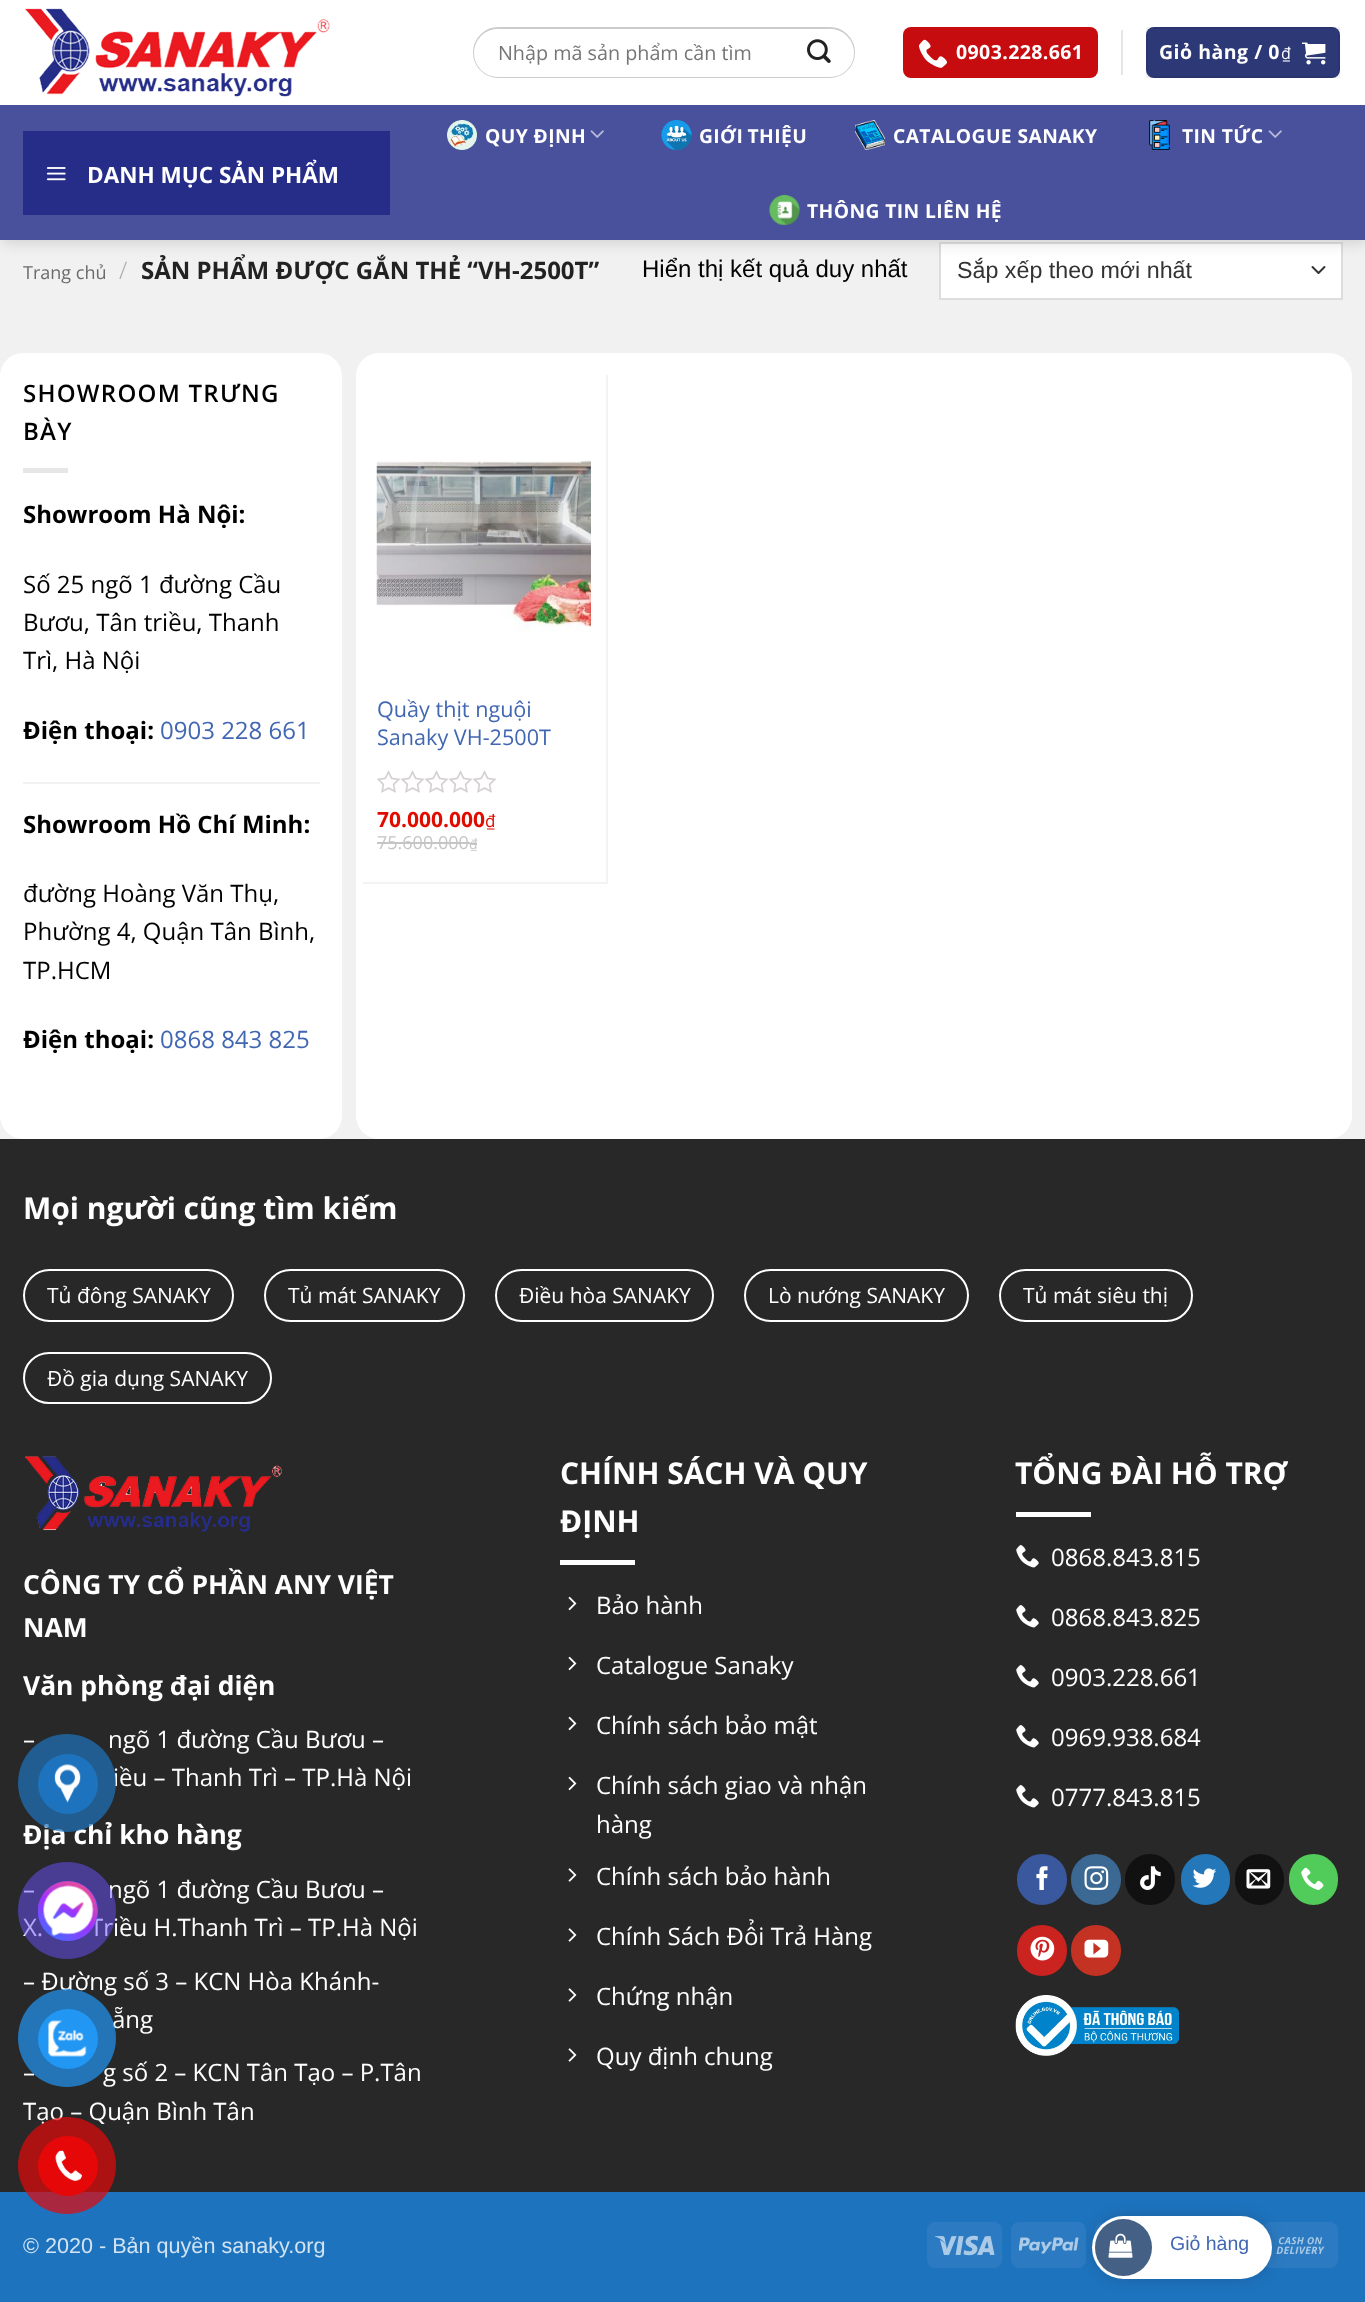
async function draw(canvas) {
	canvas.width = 1365;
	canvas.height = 2302;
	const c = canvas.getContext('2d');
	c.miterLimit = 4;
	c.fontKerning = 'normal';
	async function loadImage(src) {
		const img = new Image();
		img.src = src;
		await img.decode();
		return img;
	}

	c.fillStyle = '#f1f1f1';
	c.fillRect(0, 0, 1365, 2302);
	c.fillStyle = '#fff';
	c.fillRect(941, 244, 400, 54);
	c.beginPath();
	c.moveTo(1312.5, 267);
	c.lineTo(1318.5, 273);
	c.lineTo(1324.5, 267);
	c.strokeStyle = '#333';
	c.lineWidth = 2;
	c.lineCap = 'round';
	c.lineJoin = 'round';
	c.stroke();
	c.strokeStyle = '#ddd';
	c.lineJoin = 'miter';
	c.strokeRect(940, 243, 402, 56);
	c.fillStyle = '#00000026';
	c.filter = 'blur(7.5px)';
	c.beginPath();
	c.rect(2, 2, 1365, 240);
	c.fill();
	c.filter = 'none';
	c.fillStyle = '#fff';
	c.fillRect(0, 0, 1365, 105);
	c.drawImage(await loadImage('img1.png'), 25, 8, 305, 89);
	c.beginPath();
	c.roundRect(474, 28, 380, 49, 24.5);
	c.strokeStyle = '#ccc';
	c.stroke();
	c.beginPath();
	c.roundRect(474, 29, 311, 48, [24, 0, 0, 24]);
	c.fill();
	c.font = '19.75px Open Sans';
	c.fillStyle = '#757575';
	c.fillText('Nhập mã sản phẩm cần tìm', 498, 60);
	c.fillStyle = '#fff';
	c.beginPath();
	c.roundRect(785, 29, 69, 48, [0, 24, 24, 0]);
	c.fill();
	c.drawImage(await loadImage('img2.png'), 807, 39, 24, 24);
	c.fillStyle = '#c60c0f';
	c.beginPath();
	c.roundRect(903, 27, 195, 51, 8);
	c.fill();
	c.drawImage(await loadImage('img3.png'), 918, 39, 29, 29);
	c.letterSpacing = '0.4px';
	c.font = 'bold 19.5px Open Sans';
	c.fillStyle = '#fff';
	c.fillText('0903.228.661', 956, 59);
	c.fillStyle = '#e6e6e6';
	c.fillRect(1121, 30, 2, 45);
	c.fillStyle = '#2d3877';
	c.beginPath();
	c.roundRect(1146, 27, 194, 51, 8);
	c.fill();
	c.strokeStyle = '#0000000d';
	c.strokeRect(1147, 28, 192, 49);
	c.letterSpacing = '0.5px';
	c.fillStyle = '#fff';
	c.fillText('Giỏ hàng / 0', 1159, 59);
	c.font = '16px Open Sans';
	c.fillText('₫', 1281, 59);
	c.drawImage(await loadImage('img4.png'), 1302, 42, 24, 23);
	c.fillStyle = '#49509c';
	c.fillRect(0, 105, 1365, 135);
	c.fillStyle = '#252d88';
	c.fillRect(23, 131, 367, 84);
	c.drawImage(await loadImage('img5.png'), 46, 167, 20, 14);
	c.letterSpacing = '0px';
	c.font = 'bold 22.5px Open Sans';
	c.fillStyle = '#fff';
	c.fillText('DANH MỤC SẢN PHẨM', 87, 183);
	c.drawImage(await loadImage('img6.png'), 447, 120, 30, 30);
	c.letterSpacing = '0.4px';
	c.font = 'bold 19.25px Open Sans';
	c.fillText('QUY ĐỊNH', 485, 143);
	c.drawImage(await loadImage('img7.png'), 590, 130, 14, 8);
	c.drawImage(await loadImage('img8.png'), 661, 120, 31, 30);
	c.wordSpacing = '-1px';
	c.fillText('GIỚI THIỆU', 699, 143);
	c.drawImage(await loadImage('img9.png'), 855, 120, 30, 30);
	c.wordSpacing = '0px';
	c.fillText('CATALOGUE SANAKY', 893, 143);
	c.drawImage(await loadImage('img10.png'), 1149, 120, 21, 30);
	c.fillText('TIN TỨC', 1182, 143);
	c.drawImage(await loadImage('img7.png'), 1268, 130, 14, 8);
	c.drawImage(await loadImage('img11.png'), 769, 195, 31, 30);
	c.fillText('THÔNG TIN LIÊN HỆ', 807, 218);
	c.letterSpacing = '0px';
	c.font = '18px Open Sans';
	c.fillStyle = '#6b6b6b';
	c.fillText('Trang chủ', 23, 279);
	c.font = '300 24px Open Sans';
	c.fillStyle = '#a9a9a9';
	c.fillText('/', 119, 279);
	c.font = 'bold 24px Open Sans';
	c.fillStyle = '#222';
	c.fillText('SẢN PHẨM ĐƯỢC GẮN THẺ “VH-2500T”', 141, 279);
	c.font = '24px Liberation Sans';
	c.fillStyle = '#000';
	c.fillText('Hiển thị kết quả duy nhất', 642, 277);
	c.font = '23.25px Liberation Sans';
	c.fillStyle = '#333';
	c.fillText('Sắp xếp theo mới nhất', 957, 278);
	c.fillStyle = '#fff';
	c.beginPath();
	c.roundRect(0, 353, 342, 786, 23);
	c.fill();
	c.letterSpacing = '1.25px';
	c.font = '600 24px Open Sans';
	c.fillStyle = '#000';
	c.fillText('SHOWROOM TRƯNG', 23, 402);
	c.fillText('BÀY', 23, 440);
	c.fillStyle = '#e6e6e6';
	c.fillRect(23, 468, 45, 5);
	c.letterSpacing = '0px';
	c.font = 'bold 24px Open Sans';
	c.fillStyle = '#000';
	c.fillText('Showroom Hà Nội:', 23, 523);
	c.font = '24px Open Sans';
	for (const [text, x, y] of [
		['Số 25 ngõ 1 đường Cầu', 23, 593],
		['Bươu, Tân triều, Thanh', 23, 631],
		['Trì, Hà Nội', 23, 669],
	]) {
		c.fillText(text, x, y);
	}
	c.font = 'bold 24px Open Sans';
	c.fillText('Điện thoại:', 23, 739);
	c.font = '24px Open Sans';
	c.fillStyle = '#4267b2';
	c.fillText('0903 228 661', 160, 739);
	c.fillStyle = '#f2f2f2';
	c.fillRect(23, 782, 297, 2);
	c.font = 'bold 24px Open Sans';
	c.fillStyle = '#000';
	c.fillText('Showroom Hồ Chí Minh:', 23, 833);
	c.font = '24px Open Sans';
	for (const [text, x, y] of [
		['đường Hoàng Văn Thụ,', 23, 902],
		['Phường 4, Quận Tân Bình,', 23, 940],
		['TP.HCM', 23, 979],
	]) {
		c.fillText(text, x, y);
	}
	c.font = 'bold 24px Open Sans';
	c.fillText('Điện thoại:', 23, 1048);
	c.font = '24px Open Sans';
	c.fillStyle = '#4267b2';
	c.fillText('0868 843 825', 160, 1048);
	c.fillStyle = '#fff';
	c.beginPath();
	c.roundRect(356, 353, 996, 786, 23);
	c.fill();
	c.fillStyle = '#f3f3f3';
	c.fillRect(606, 375, 2, 509);
	c.fillRect(363, 882, 245, 2);
	c.drawImage(await loadImage('img12.png'), 376, 460, 215, 173);
	c.font = '21.6px Open Sans';
	c.fillStyle = '#4267b2';
	c.fillText('Quầy thịt nguội', 377, 717);
	c.fillText('Sanaky VH-2500T', 377, 745);
	c.drawImage(await loadImage('img13.png'), 377, 770, 120, 23);
	c.font = 'bold 21px Open Sans';
	c.fillStyle = '#e10c00';
	c.fillText('70.000.000', 377, 827);
	c.font = '17px Open Sans';
	c.fillText('₫', 485, 827);
	c.font = '18px Open Sans';
	c.fillStyle = '#c5c5c5';
	c.fillText('75.600.000', 377, 849);
	c.fillRect(377, 842, 93, 2);
	c.font = '14px Open Sans';
	c.fillText('₫', 469, 849);
	c.fillRect(470, 843, 7, 2);
	c.fillStyle = '#282828';
	c.fillRect(0, 1139, 1365, 1053);
	c.font = 'bold 30px Open Sans';
	c.fillStyle = '#fff';
	c.fillText('Mọi người cũng tìm kiếm', 23, 1219);
	c.beginPath();
	c.roundRect(24, 1270, 209, 51, 25.5);
	c.strokeStyle = '#fff';
	c.stroke();
	c.font = '21px Open Sans';
	c.fillText('Tủ đông SANAKY', 47, 1303);
	c.beginPath();
	c.roundRect(265, 1270, 199, 51, 25.5);
	c.stroke();
	c.fillText('Tủ mát SANAKY', 288, 1303);
	c.beginPath();
	c.roundRect(496, 1270, 217, 51, 25.5);
	c.stroke();
	c.fillText('Điều hòa SANAKY', 519, 1303);
	c.beginPath();
	c.roundRect(745, 1270, 223, 51, 25.5);
	c.stroke();
	c.fillText('Lò nướng SANAKY', 768, 1303);
	c.beginPath();
	c.roundRect(1000, 1270, 192, 51, 25.5);
	c.stroke();
	c.fillText('Tủ mát siêu thị', 1023, 1303);
	c.beginPath();
	c.roundRect(24, 1353, 247, 50, 25);
	c.stroke();
	c.fillText('Đồ gia dụng SANAKY', 47, 1386);
	c.drawImage(await loadImage('img14.png'), 25, 1456, 258, 76);
	c.font = 'bold 26.4px Open Sans';
	for (const [text, x, y] of [
		['CÔNG TY CỔ PHẦN ANY VIỆT', 23, 1594],
		['NAM', 23, 1637],
		['Văn phòng đại diện', 23, 1695],
	]) {
		c.fillText(text, x, y);
	}
	c.font = '24px Open Sans';
	for (const [text, x, y] of [
		['–', 23, 1748],
		['ngõ 1 đường Cầu Bươu –', 108, 1748],
		['iều – Thanh Trì – TP.Hà Nội', 113, 1786],
	]) {
		c.fillText(text, x, y);
	}
	c.font = 'bold 26.4px Open Sans';
	c.fillText('Địa chỉ kho hàng', 23, 1844);
	c.font = '24px Open Sans';
	for (const [text, x, y] of [
		['–', 23, 1898],
		['ngõ 1 đường Cầu Bươu –', 108, 1898],
		['X.', 23, 1936],
		['Triều H.Thanh Trì – TP.Hà Nội', 90, 1936],
		['– Đường số 3 – KCN Hòa Khánh-', 23, 1990],
		['ẵng', 112, 2028],
		['–', 23, 2081],
		['g số 2 – KCN Tân Tạo – P.Tân', 103, 2081],
		['Tạo – Quận Bình Tân', 23, 2120],
	]) {
		c.fillText(text, x, y);
	}
	c.font = 'bold 30px Open Sans';
	c.fillText('CHÍNH SÁCH VÀ QUY', 560, 1484);
	c.fillText('ĐỊNH', 560, 1532);
	c.fillRect(560, 1560, 75, 5);
	c.drawImage(await loadImage('img15.png'), 568, 1596, 9, 15);
	c.font = '24px Open Sans';
	c.fillText('Bảo hành', 596, 1614);
	c.drawImage(await loadImage('img15.png'), 568, 1656, 9, 15);
	c.fillText('Catalogue Sanaky', 596, 1674);
	c.drawImage(await loadImage('img15.png'), 568, 1716, 9, 15);
	c.fillText('Chính sách bảo mật', 596, 1734);
	c.drawImage(await loadImage('img15.png'), 568, 1776, 9, 15);
	c.fillText('Chính sách giao và nhận', 596, 1794);
	c.fillText('hàng', 596, 1833);
	c.drawImage(await loadImage('img16.png'), 568, 1868, 9, 14);
	c.fillText('Chính sách bảo hành', 596, 1885);
	c.drawImage(await loadImage('img16.png'), 568, 1928, 9, 14);
	c.fillText('Chính Sách Đổi Trả Hàng', 596, 1945);
	c.drawImage(await loadImage('img16.png'), 568, 1988, 9, 14);
	c.fillText('Chứng nhận', 596, 2005);
	c.drawImage(await loadImage('img16.png'), 568, 2048, 9, 14);
	c.fillText('Quy định chung', 596, 2065);
	c.font = 'bold 30px Open Sans';
	c.fillText('TỔNG ĐÀI HỖ TRỢ', 1015, 1484);
	c.fillRect(1016, 1512, 75, 5);
	c.drawImage(await loadImage('img17.png'), 1016, 1545, 23, 23);
	c.font = '24px Open Sans';
	c.fillText('0868.843.815', 1051, 1566);
	c.drawImage(await loadImage('img17.png'), 1016, 1605, 23, 23);
	c.fillText('0868.843.825', 1051, 1626);
	c.drawImage(await loadImage('img17.png'), 1016, 1665, 23, 23);
	c.fillText('0903.228.661', 1051, 1686);
	c.drawImage(await loadImage('img17.png'), 1016, 1725, 23, 23);
	c.fillText('0969.938.684', 1051, 1746);
	c.drawImage(await loadImage('img17.png'), 1016, 1785, 23, 23);
	c.fillText('0777.843.815', 1051, 1806);
	c.fillStyle = '#3a589d';
	c.beginPath();
	c.roundRect(1018, 1855, 48, 49, 24);
	c.fill();
	c.strokeStyle = '#3a589d';
	c.stroke();
	c.drawImage(await loadImage('img18.png'), 1036, 1866, 12, 24);
	c.fillStyle = '#3b6994';
	c.beginPath();
	c.roundRect(1072, 1855, 48, 49, 24);
	c.fill();
	c.strokeStyle = '#3b6994';
	c.stroke();
	c.drawImage(await loadImage('img19.png'), 1084, 1866, 25, 24);
	c.fillStyle = '#111';
	c.beginPath();
	c.roundRect(1126, 1855, 48, 49, 24);
	c.fill();
	c.strokeStyle = '#111';
	c.stroke();
	c.drawImage(await loadImage('img20.png'), 1140, 1866, 21, 24);
	c.fillStyle = '#2478ba';
	c.beginPath();
	c.roundRect(1182, 1855, 47, 49, 23.5);
	c.fill();
	c.strokeStyle = '#2478ba';
	c.stroke();
	c.drawImage(await loadImage('img21.png'), 1192, 1868, 25, 20);
	c.fillStyle = '#111';
	c.beginPath();
	c.roundRect(1236, 1855, 47, 49, 23.5);
	c.fill();
	c.strokeStyle = '#111';
	c.stroke();
	c.drawImage(await loadImage('img22.png'), 1246, 1869, 25, 20);
	c.fillStyle = '#51cb5a';
	c.beginPath();
	c.roundRect(1290, 1855, 47, 49, 23.5);
	c.fill();
	c.strokeStyle = '#51cb5a';
	c.stroke();
	c.drawImage(await loadImage('img23.png'), 1301, 1867, 23, 23);
	c.fillStyle = '#cb2320';
	c.beginPath();
	c.roundRect(1018, 1926, 48, 49, 24);
	c.fill();
	c.strokeStyle = '#cb2320';
	c.stroke();
	c.drawImage(await loadImage('img24.png'), 1030, 1936, 25, 25);
	c.fillStyle = '#c33223';
	c.beginPath();
	c.roundRect(1072, 1926, 48, 49, 24);
	c.fill();
	c.strokeStyle = '#c33223';
	c.stroke();
	c.drawImage(await loadImage('img25.png'), 1084, 1939, 25, 19);
	c.drawImage(await loadImage('img26.png'), 1015, 1995, 164, 61);
	c.fillStyle = '#1e73be';
	c.fillRect(0, 2192, 1365, 110);
	c.font = '21.6px Liberation Sans';
	c.fillStyle = '#d2e3f2';
	c.fillText('© 2020 - Bản quyền sanaky.org', 23, 2253);
	c.fillStyle = '#2c7bc2';
	c.beginPath();
	c.roundRect(927, 2222, 75, 46, 8);
	c.fill();
	c.drawImage(await loadImage('img27.png'), 935, 2235, 60, 21);
	c.beginPath();
	c.roundRect(1011, 2222, 75, 46, 8);
	c.fill();
	c.drawImage(await loadImage('img28.png'), 1019, 2237, 60, 17);
	c.beginPath();
	c.roundRect(1095, 2222, 75, 46, 8);
	c.fill();
	c.beginPath();
	c.roundRect(1263, 2222, 75, 46, 8);
	c.fill();
	c.drawImage(await loadImage('img29.png'), 1276, 2237, 49, 17);
	c.fillStyle = '#1e73beb3';
	c.beginPath();
	c.arc(67, 1783, 49, 0, 2 * Math.PI);
	c.fill();
	c.fillStyle = '#1e73be';
	c.beginPath();
	c.arc(68, 1784, 30, 0, 2 * Math.PI);
	c.fill();
	c.drawImage(await loadImage('img30.png'), 54, 1764, 27, 39);
	c.fillStyle = '#6a4ffe80';
	c.beginPath();
	c.roundRect(18, 1862, 98, 97, 48.5);
	c.fill();
	c.fillStyle = '#6a4ffe';
	c.beginPath();
	c.arc(68, 1911, 30, 0, 2 * Math.PI);
	c.fill();
	c.drawImage(await loadImage('img31.png'), 38, 1881, 60, 60);
	c.fillStyle = '#2196f3b3';
	c.beginPath();
	c.arc(67, 2038, 49, 0, 2 * Math.PI);
	c.fill();
	c.fillStyle = '#2196f3';
	c.beginPath();
	c.arc(68, 2039, 30, 0, 2 * Math.PI);
	c.fill();
	c.drawImage(await loadImage('img32.png'), 48, 2020, 39, 37);
	c.fillStyle = '#e60808b3';
	c.beginPath();
	c.roundRect(18, 2117, 98, 97, 48.5);
	c.fill();
	c.fillStyle = '#e60808';
	c.beginPath();
	c.arc(68, 2166, 30, 0, 2 * Math.PI);
	c.fill();
	c.drawImage(await loadImage('img33.png'), 55, 2150, 27, 31);
	c.fillStyle = '#00000026';
	c.filter = 'blur(7.5px)';
	c.beginPath();
	c.roundRect(1092, 2216, 180, 63, 31.5);
	c.fill();
	c.filter = 'none';
	c.fillStyle = '#fff';
	c.beginPath();
	c.roundRect(1092, 2216, 180, 63, 31.5);
	c.fill();
	c.fillStyle = '#446084';
	c.beginPath();
	c.arc(1123.5, 2247.5, 28.5, 0, 2 * Math.PI);
	c.fill();
	c.drawImage(await loadImage('img34.png'), 1108, 2233, 25, 25);
	c.font = '19.5px Liberation Sans';
	c.fillStyle = '#4267b2';
	c.fillText('Giỏ hàng', 1170, 2250);
}

draw(document.querySelector('canvas'));
